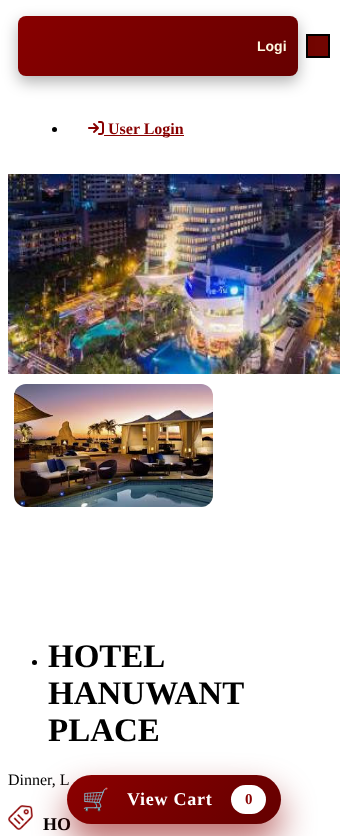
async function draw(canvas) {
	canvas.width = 348;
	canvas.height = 836;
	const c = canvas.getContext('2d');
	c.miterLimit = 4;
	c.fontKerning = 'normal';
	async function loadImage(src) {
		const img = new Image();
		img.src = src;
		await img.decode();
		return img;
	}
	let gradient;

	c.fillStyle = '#fff';
	c.fillRect(0, 0, 348, 836);
	c.fillStyle = '#730501';
	c.beginPath();
	c.rect(307, 35, 22, 22);
	c.fill();
	c.strokeStyle = '#000';
	c.lineWidth = 2;
	c.stroke();
	c.fillStyle = '#0000004d';
	c.filter = 'blur(7.5px)';
	c.beginPath();
	c.roundRect(18, 22, 280, 60, 8);
	c.fill();
	c.filter = 'none';
	gradient = c.createLinearGradient(73, -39, 243, 131);
	gradient.addColorStop(0, '#800');
	gradient.addColorStop(1, '#600');
	c.fillStyle = gradient;
	c.beginPath();
	c.roundRect(18, 16, 280, 60, 8);
	c.fill();
	c.font = 'bold 14px Liberation Sans';
	c.fillStyle = '#fff8e1';
	c.fillText('Logi', 257, 51);
	c.fillStyle = '#000';
	c.beginPath();
	c.arc(54.5, 129.5, 2.5, 0, 2 * Math.PI);
	c.fill();
	c.drawImage(await loadImage('img1.png'), 88, 121, 16, 14);
	c.fillStyle = '#800';
	c.fillRect(104, 135, 80, 1);
	c.font = 'bold 16px Liberation Serif';
	c.fillText('User Login', 108, 134);
	c.drawImage(await loadImage('img2.png'), 8, 174, 332, 200);
	c.drawImage(await loadImage('img3.png'), 14, 384, 199, 123);
	c.fillStyle = '#000';
	c.beginPath();
	c.arc(34.5, 662.5, 2.5, 0, 2 * Math.PI);
	c.fill();
	c.font = 'bold 33px Liberation Serif';
	for (const [text, x, y] of [
		['HOTEL', 48, 667],
		['HANUWANT', 48, 704],
		['PLACE', 48, 741],
	]) {
		c.fillText(text, x, y);
	}
	c.font = '16px Liberation Serif';
	c.fillText('Dinner, L', 8, 785);
	c.drawImage(await loadImage('img4.png'), 8, 805, 25, 25);
	c.font = 'bold 18px Liberation Serif';
	c.fillText('HO', 43, 830);
	c.fillStyle = '#8c000099';
	c.filter = 'blur(17.5px)';
	c.beginPath();
	c.roundRect(67, 793, 214, 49, 24.5);
	c.fill();
	c.filter = 'none';
	gradient = c.createLinearGradient(108, 734, 240, 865);
	gradient.addColorStop(0, '#8c0000');
	gradient.addColorStop(1, '#640000');
	c.fillStyle = gradient;
	c.beginPath();
	c.roundRect(67, 775, 214, 49, 24.5);
	c.fill();
	c.font = 'bold 22px Noto Color Emoji';
	c.fillStyle = '#fff';
	c.fillText('🛒', 82, 807);
	c.letterSpacing = '0.75px';
	c.font = 'bold 18px Liberation Serif';
	c.fillText('View Cart', 127, 805);
	c.beginPath();
	c.roundRect(231, 785, 35, 29, 14.5);
	c.fill();
	c.letterSpacing = '0px';
	c.font = 'bold 15px Liberation Serif';
	c.fillStyle = '#800';
	c.fillText('0', 245, 804);
}

draw(document.querySelector('canvas'));
